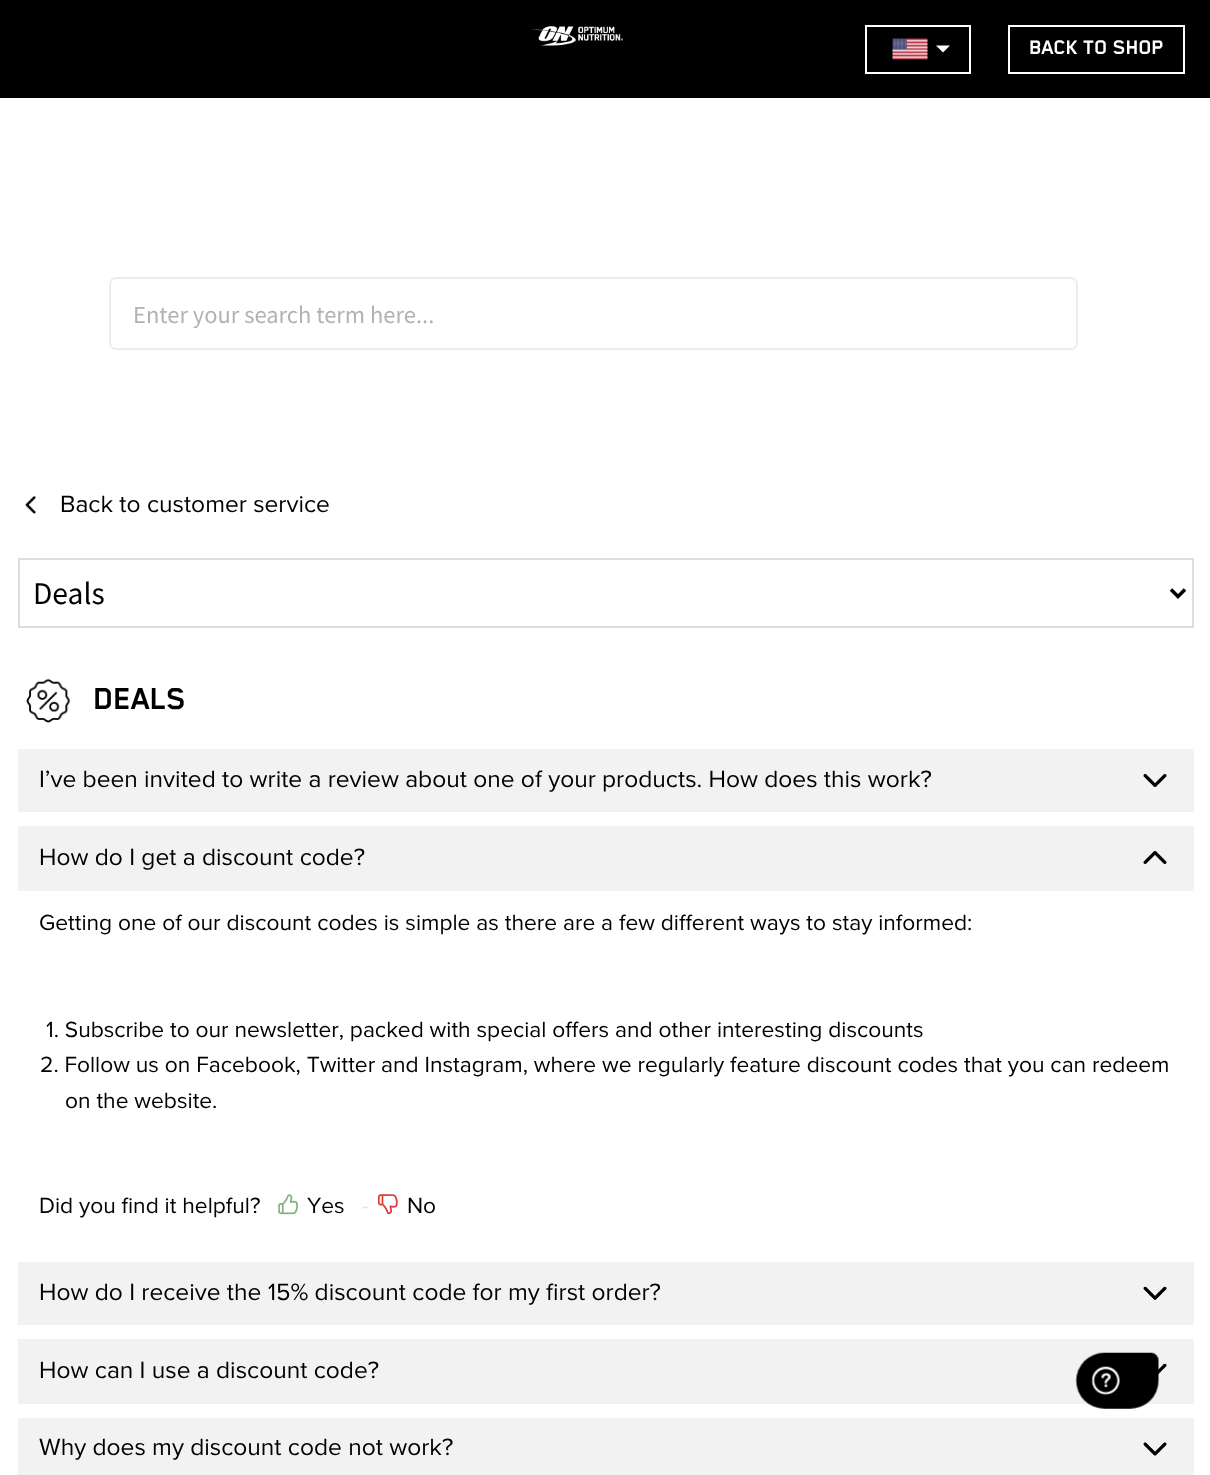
async function draw(canvas) {
	canvas.width = 1210;
	canvas.height = 1475;
	const c = canvas.getContext('2d');
	c.miterLimit = 4;
	c.fontKerning = 'normal';
	async function loadImage(src) {
		const img = new Image();
		img.src = src;
		await img.decode();
		return img;
	}

	c.fillStyle = '#fff';
	c.fillRect(0, 0, 1210, 1475);
	c.fillStyle = '#000';
	c.fillRect(0, 0, 1210, 98);
	c.drawImage(await loadImage('img1.png'), 531, 26, 92, 20);
	c.strokeStyle = '#fff';
	c.lineWidth = 2;
	c.strokeRect(866, 26, 104, 47);
	c.drawImage(await loadImage('img2.png'), 892, 38, 36, 22);
	c.fillStyle = '#fff';
	c.beginPath();
	c.moveTo(936, 45.5);
	c.lineTo(950, 45.5);
	c.lineTo(943, 52.5);
	c.closePath();
	c.fill();
	c.strokeRect(1009, 26, 175, 47);
	c.font = 'bold 22.75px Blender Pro';
	c.fillText('BACK TO SHOP', 1029, 54);
	c.beginPath();
	c.roundRect(110, 278, 967, 71, 6);
	c.strokeStyle = '#ebeef0';
	c.stroke();
	c.font = '24.5px Source Sans Pro';
	c.fillStyle = '#b2b2b2';
	c.fillText('Enter your search term here...', 133, 323);
	c.drawImage(await loadImage('img3.png'), 25, 495, 11, 19);
	c.font = '24.5px Proxima Nova';
	c.fillStyle = '#000';
	c.fillText('Back to customer service', 60, 512);
	c.strokeStyle = '#dadfe3';
	c.strokeRect(19, 559, 1174, 68);
	c.beginPath();
	c.moveTo(1171, 589.5);
	c.lineTo(1178, 596.5);
	c.lineTo(1185, 589.5);
	c.strokeStyle = '#000';
	c.lineWidth = 3.5;
	c.stroke();
	c.font = '31.5px Source Sans Pro';
	c.fillText('Deals', 33, 604);
	c.drawImage(await loadImage('img4.png'), 26, 678, 45, 45);
	c.font = 'bold 35px Blender Pro';
	c.fillText('DEALS', 93, 709);
	c.fillStyle = '#f2f2f2';
	c.fillRect(18, 749, 1176, 63);
	c.font = '24.5px Proxima Nova';
	c.fillStyle = '#000';
	c.fillText('I’ve been invited to write a review about one of your products. How does this work?', 39, 787);
	c.drawImage(await loadImage('img5.png'), 1143, 774, 24, 13);
	c.fillStyle = '#f2f2f2';
	c.fillRect(18, 826, 1176, 65);
	c.fillStyle = '#000';
	c.fillText('How do I get a discount code?', 39, 865);
	c.drawImage(await loadImage('img6.png'), 1143, 851, 24, 13);
	c.font = '22.75px Proxima Nova';
	for (const [text, x, y] of [
		['Getting one of our discount codes is simple as there are a few different ways to stay informed:', 39, 930],
		['1. Subscribe to our newsletter, packed with special offers and other interesting discounts', 46, 1037],
		['2. Follow us on Facebook, Twitter and Instagram, where we regularly feature discount codes that you can redeem', 40, 1072],
		['on the website.', 65, 1108],
		['Did you find it helpful?', 39, 1213],
	]) {
		c.fillText(text, x, y);
	}
	c.drawImage(await loadImage('img7.png'), 278, 1194, 21, 21);
	c.fillText('Yes', 307, 1213);
	c.fillStyle = '#e5e5e5';
	c.fillText('-', 362, 1213);
	c.drawImage(await loadImage('img8.png'), 378, 1194, 20, 21);
	c.fillStyle = '#000';
	c.fillText('No', 407, 1213);
	c.fillStyle = '#f2f2f2';
	c.fillRect(18, 1262, 1176, 63);
	c.font = '24.5px Proxima Nova';
	c.fillStyle = '#000';
	c.fillText('How do I receive the 15% discount code for my first order?', 39, 1300);
	c.drawImage(await loadImage('img9.png'), 1143, 1286, 24, 14);
	c.fillStyle = '#f2f2f2';
	c.fillRect(18, 1339, 1176, 65);
	c.fillStyle = '#000';
	c.fillText('How can I use a discount code?', 39, 1378);
	c.drawImage(await loadImage('img10.png'), 1158, 1363, 9, 12);
	c.fillStyle = '#f2f2f2';
	c.fillRect(18, 1418, 1176, 57);
	c.fillStyle = '#000';
	c.fillText('Why does my discount code not work?', 39, 1455);
	c.drawImage(await loadImage('img11.png'), 1143, 1442, 24, 14);
	c.drawImage(await loadImage('img12.png'), 1075, 1352, 84, 57);
}

draw(document.querySelector('canvas'));
